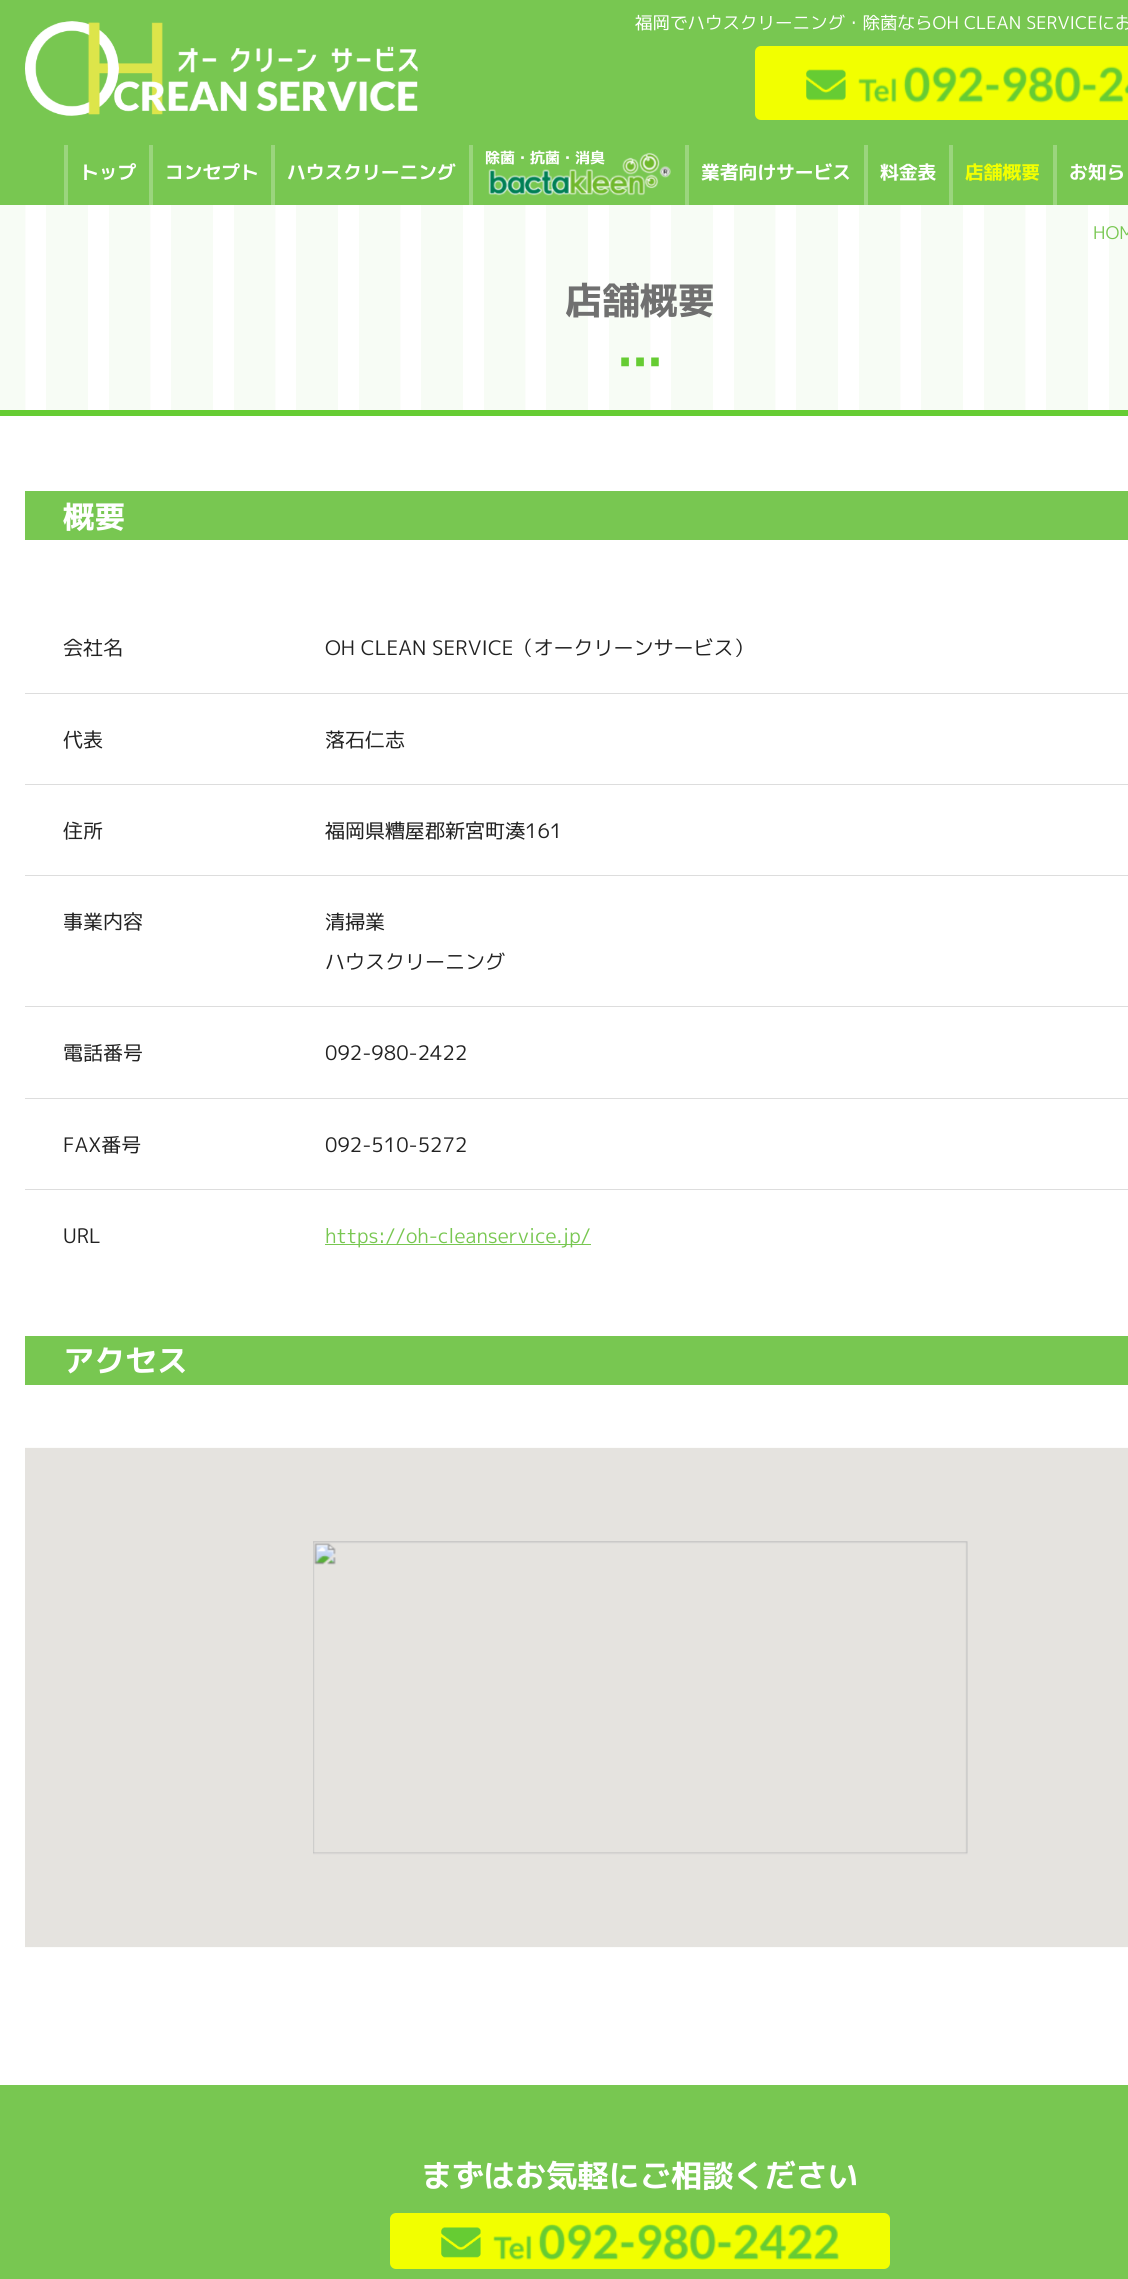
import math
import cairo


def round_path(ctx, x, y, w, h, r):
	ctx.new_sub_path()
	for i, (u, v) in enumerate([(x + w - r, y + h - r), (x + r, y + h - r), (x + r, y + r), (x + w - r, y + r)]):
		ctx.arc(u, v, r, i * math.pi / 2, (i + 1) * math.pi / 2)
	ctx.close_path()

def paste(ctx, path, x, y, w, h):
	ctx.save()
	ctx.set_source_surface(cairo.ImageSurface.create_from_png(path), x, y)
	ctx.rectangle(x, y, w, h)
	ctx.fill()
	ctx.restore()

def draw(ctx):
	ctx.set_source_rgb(1, 1, 1)
	ctx.paint()
	ctx.set_source_rgb(0.471, 0.78, 0.318)
	ctx.rectangle(0, 0, 1128, 205)
	ctx.fill()
	ctx.select_font_face('M PLUS 1p')
	ctx.set_font_size(17.5)
	ctx.set_source_rgb(1, 1, 1)
	ctx.move_to(635, 29)
	ctx.show_text('福岡でハウスクリーニング・除菌ならOH CLEAN SERVICEにお')
	paste(ctx, 'media/1.png', 25, 21, 393, 95)
	ctx.set_source_rgb(0.949, 1, 0)
	round_path(ctx, 755, 46, 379, 74, 6)
	ctx.fill()
	paste(ctx, 'media/2.png', 806, 69, 40, 32)
	paste(ctx, 'media/3.png', 858, 66, 270, 37)
	ctx.set_source_rgb(0.608, 0.835, 0.494)
	ctx.rectangle(685, 145, 4, 60)
	ctx.fill()
	ctx.select_font_face('M PLUS 1p', cairo.FONT_SLANT_NORMAL, cairo.FONT_WEIGHT_BOLD)
	ctx.set_font_size(15)
	ctx.set_source_rgb(1, 1, 1)
	ctx.move_to(485, 163)
	ctx.show_text('除菌・抗菌・消臭')
	paste(ctx, 'media/4.png', 488, 152, 183, 44)
	ctx.set_source_rgb(0.608, 0.835, 0.494)
	ctx.rectangle(149, 145, 4, 60)
	ctx.fill()
	ctx.rectangle(64, 145, 4, 60)
	ctx.fill()
	ctx.set_font_size(18.75)
	ctx.set_source_rgb(1, 1, 1)
	ctx.move_to(80, 179)
	ctx.show_text('トップ')
	ctx.set_source_rgb(0.608, 0.835, 0.494)
	ctx.rectangle(271, 145, 4, 60)
	ctx.fill()
	ctx.set_source_rgb(1, 1, 1)
	ctx.move_to(165, 179)
	ctx.show_text('コンセプト')
	ctx.set_source_rgb(0.608, 0.835, 0.494)
	ctx.rectangle(469, 145, 4, 60)
	ctx.fill()
	ctx.set_source_rgb(1, 1, 1)
	ctx.move_to(287, 179)
	ctx.show_text('ハウスクリーニング')
	ctx.set_source_rgb(0.608, 0.835, 0.494)
	ctx.rectangle(864, 145, 4, 60)
	ctx.fill()
	ctx.set_source_rgb(1, 1, 1)
	ctx.move_to(701, 179)
	ctx.show_text('業者向けサービス')
	ctx.set_source_rgb(0.608, 0.835, 0.494)
	ctx.rectangle(949, 145, 4, 60)
	ctx.fill()
	ctx.set_source_rgb(1, 1, 1)
	ctx.move_to(880, 179)
	ctx.show_text('料金表')
	ctx.set_source_rgb(0.608, 0.835, 0.494)
	ctx.rectangle(1053, 145, 4, 60)
	ctx.fill()
	ctx.set_source_rgb(0.949, 1, 0)
	ctx.move_to(965, 179)
	ctx.show_text('店舗概要')
	ctx.set_source_rgb(1, 1, 1)
	ctx.move_to(1069, 179)
	ctx.show_text('お知ら')
	paste(ctx, 'media/5.png', 0, 205, 1128, 205)
	ctx.set_source_rgb(0.4, 0.8, 0.2)
	ctx.rectangle(0, 410, 1128, 6)
	ctx.fill()
	ctx.select_font_face('M PLUS 1p')
	ctx.set_font_size(17.5)
	ctx.set_source_rgb(0.471, 0.78, 0.318)
	ctx.move_to(1093, 239)
	ctx.show_text('HOM')
	ctx.select_font_face('M PLUS 1p', cairo.FONT_SLANT_NORMAL, cairo.FONT_WEIGHT_BOLD)
	ctx.set_font_size(37.5)
	ctx.set_source_rgb(0.439, 0.439, 0.439)
	ctx.move_to(565, 314)
	ctx.show_text('店舗概要')
	paste(ctx, 'media/6.png', 621, 357, 38, 10)
	ctx.set_source_rgb(0.471, 0.78, 0.318)
	ctx.rectangle(25, 491, 1103, 49)
	ctx.fill()
	ctx.set_font_size(31.25)
	ctx.set_source_rgb(1, 1, 1)
	ctx.move_to(63, 528)
	ctx.show_text('概要')
	ctx.select_font_face('M PLUS 1p')
	ctx.set_font_size(20)
	ctx.set_source_rgb(0.133, 0.133, 0.133)
	for x, y, s in [
		(63, 655, '会社名'),
		(325, 655, 'OH CLEAN SERVICE（オークリーンサービス）'),
		(63, 747, '代表'),
	]:
		ctx.move_to(x, y)
		ctx.show_text(s)
	ctx.set_source_rgb(0.867, 0.867, 0.867)
	ctx.rectangle(25, 693, 1103, 1)
	ctx.fill()
	ctx.set_source_rgb(0.133, 0.133, 0.133)
	ctx.move_to(325, 747)
	ctx.show_text('落石仁志')
	ctx.move_to(63, 838)
	ctx.show_text('住所')
	ctx.set_source_rgb(0.867, 0.867, 0.867)
	ctx.rectangle(25, 784, 1103, 1)
	ctx.fill()
	ctx.set_source_rgb(0.133, 0.133, 0.133)
	ctx.move_to(325, 838)
	ctx.show_text('福岡県糟屋郡新宮町湊161')
	ctx.move_to(63, 929)
	ctx.show_text('事業内容')
	ctx.set_source_rgb(0.867, 0.867, 0.867)
	ctx.rectangle(25, 875, 1103, 1)
	ctx.fill()
	ctx.set_source_rgb(0.133, 0.133, 0.133)
	for x, y, s in [
		(325, 929, '清掃業'),
		(325, 969, 'ハウスクリーニング'),
		(63, 1060, '電話番号'),
	]:
		ctx.move_to(x, y)
		ctx.show_text(s)
	ctx.set_source_rgb(0.867, 0.867, 0.867)
	ctx.rectangle(25, 1006, 1103, 1)
	ctx.fill()
	ctx.set_source_rgb(0.133, 0.133, 0.133)
	ctx.move_to(325, 1060)
	ctx.show_text('092-980-2422')
	ctx.move_to(63, 1152)
	ctx.show_text('FAX番号')
	ctx.set_source_rgb(0.867, 0.867, 0.867)
	ctx.rectangle(25, 1098, 1103, 1)
	ctx.fill()
	ctx.set_source_rgb(0.133, 0.133, 0.133)
	ctx.move_to(325, 1152)
	ctx.show_text('092-510-5272')
	ctx.move_to(63, 1243)
	ctx.show_text('URL')
	ctx.set_source_rgb(0.867, 0.867, 0.867)
	ctx.rectangle(25, 1189, 1103, 1)
	ctx.fill()
	ctx.set_source_rgb(0.471, 0.78, 0.318)
	ctx.rectangle(325, 1244, 266, 1)
	ctx.fill()
	ctx.move_to(325, 1243)
	ctx.show_text('https://oh-cleanservice.jp/')
	ctx.rectangle(25, 1336, 1103, 49)
	ctx.fill()
	ctx.select_font_face('M PLUS 1p', cairo.FONT_SLANT_NORMAL, cairo.FONT_WEIGHT_BOLD)
	ctx.set_font_size(31.25)
	ctx.set_source_rgb(1, 1, 1)
	ctx.move_to(63, 1372)
	ctx.show_text('アクセス')
	paste(ctx, 'media/7.png', 25, 1447, 1103, 501)
	ctx.set_source_rgb(0.471, 0.78, 0.318)
	ctx.rectangle(0, 2085, 1128, 194)
	ctx.fill()
	ctx.set_source_rgb(1, 1, 1)
	ctx.move_to(421, 2187)
	ctx.show_text('まずはお気軽にご相談ください')
	ctx.set_source_rgb(0.949, 1, 0)
	round_path(ctx, 390, 2213, 500, 56, 6)
	ctx.fill()
	paste(ctx, 'media/8.png', 441, 2227, 40, 31)
	paste(ctx, 'media/9.png', 493, 2224, 346, 36)


surface = cairo.ImageSurface(cairo.FORMAT_RGB24, 1128, 2279)
ctx = cairo.Context(surface)
options = cairo.FontOptions()
options.set_hint_metrics(cairo.HINT_METRICS_OFF)
options.set_hint_style(cairo.HINT_STYLE_NONE)
ctx.set_font_options(options)
ctx.set_miter_limit(4)
draw(ctx)
surface.write_to_png('image.png')
